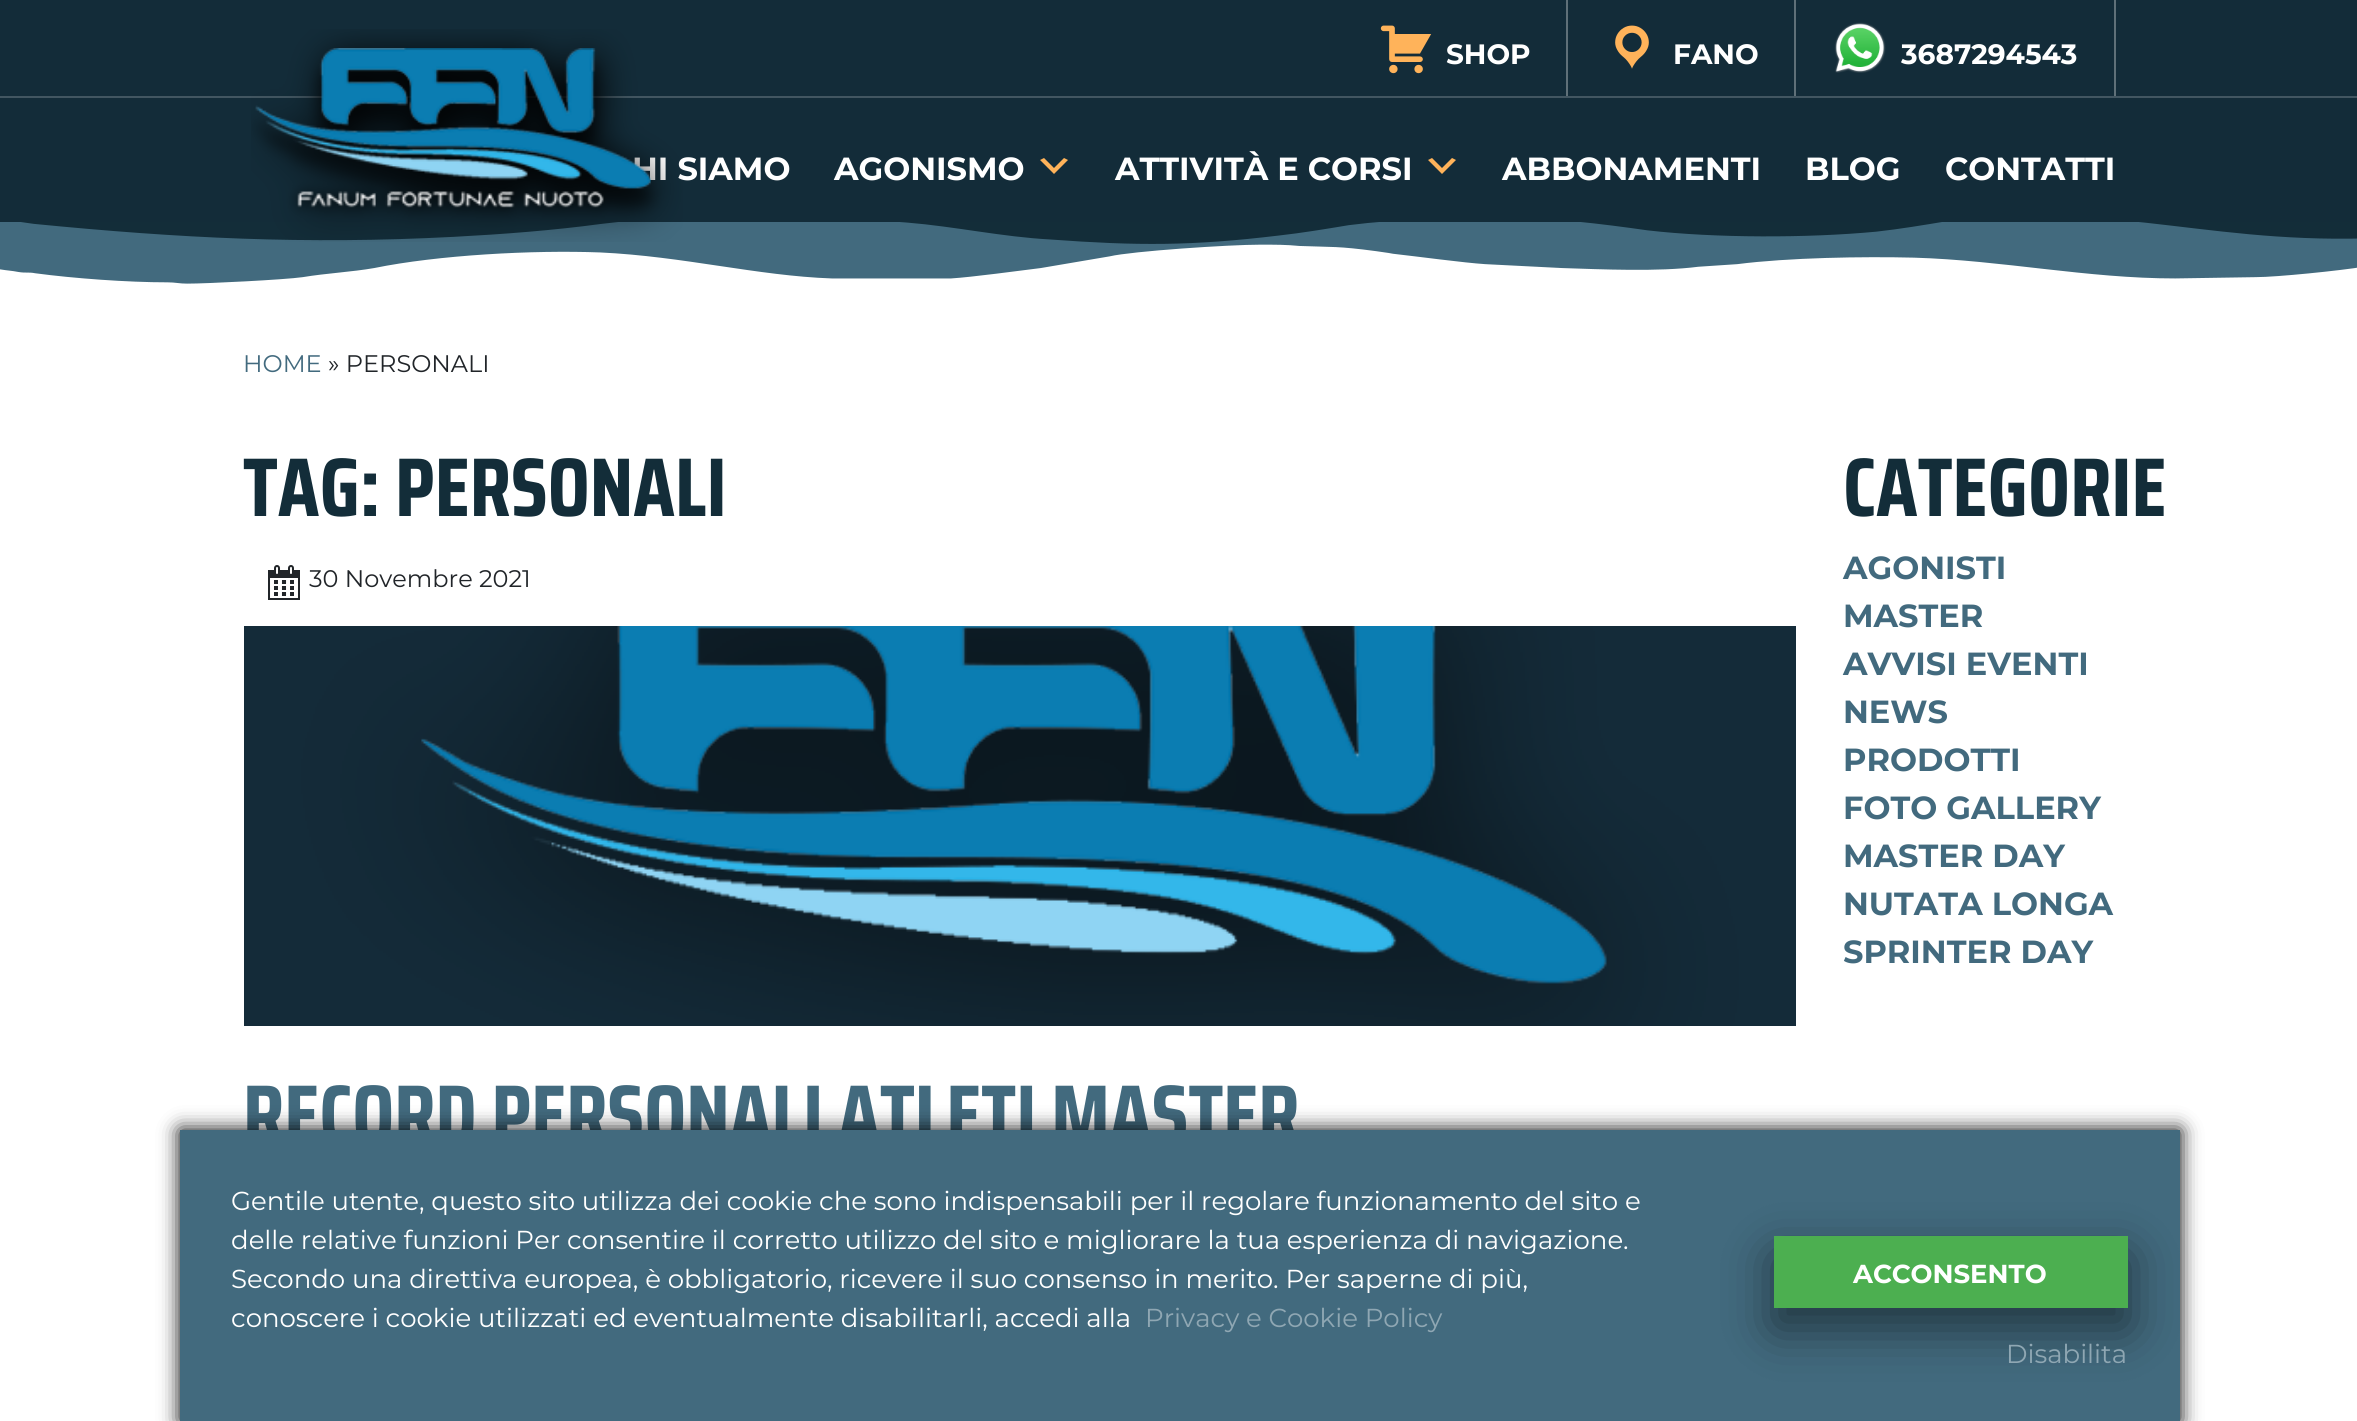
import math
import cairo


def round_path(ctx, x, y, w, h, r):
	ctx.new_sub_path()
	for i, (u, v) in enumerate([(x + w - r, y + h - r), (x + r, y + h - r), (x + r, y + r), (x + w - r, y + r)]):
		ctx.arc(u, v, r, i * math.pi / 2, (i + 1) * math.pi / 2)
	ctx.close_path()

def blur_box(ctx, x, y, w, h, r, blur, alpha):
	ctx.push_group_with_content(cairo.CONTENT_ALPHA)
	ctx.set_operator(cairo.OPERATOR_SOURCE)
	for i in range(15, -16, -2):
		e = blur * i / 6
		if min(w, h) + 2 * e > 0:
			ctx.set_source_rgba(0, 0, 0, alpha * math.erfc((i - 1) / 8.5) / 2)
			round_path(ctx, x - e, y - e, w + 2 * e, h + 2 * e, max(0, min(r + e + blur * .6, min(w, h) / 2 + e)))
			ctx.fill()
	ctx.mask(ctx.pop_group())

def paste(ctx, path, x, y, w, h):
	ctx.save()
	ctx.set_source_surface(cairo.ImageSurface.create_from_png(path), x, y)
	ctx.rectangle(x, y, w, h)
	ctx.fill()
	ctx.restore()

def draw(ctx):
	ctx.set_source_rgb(1, 1, 1)
	ctx.paint()
	ctx.set_source_rgb(0.075, 0.173, 0.224)
	ctx.rectangle(0, 0, 2357, 96)
	ctx.fill()
	ctx.set_source_rgb(0.259, 0.337, 0.38)
	ctx.rectangle(0, 96, 2357, 2)
	ctx.fill()
	ctx.set_source_rgb(0.373, 0.439, 0.471)
	ctx.rectangle(1566, 0, 2, 96)
	ctx.fill()
	paste(ctx, 'media/1.png', 1380, 25, 52, 49)
	ctx.select_font_face('Montserrat', cairo.FONT_SLANT_NORMAL, cairo.FONT_WEIGHT_BOLD)
	ctx.set_font_size(28)
	ctx.set_source_rgb(1, 1, 1)
	ctx.move_to(1446, 64)
	ctx.show_text('SHOP')
	ctx.set_source_rgb(0.373, 0.439, 0.471)
	ctx.rectangle(1794, 0, 2, 96)
	ctx.fill()
	paste(ctx, 'media/2.png', 1615, 25, 34, 44)
	ctx.set_source_rgb(1, 1, 1)
	ctx.move_to(1673, 64)
	ctx.show_text('FANO')
	ctx.set_source_rgb(0.373, 0.439, 0.471)
	ctx.rectangle(2114, 0, 2, 96)
	ctx.fill()
	paste(ctx, 'media/3.png', 1834, 22, 52, 51)
	ctx.set_source_rgb(1, 1, 1)
	ctx.move_to(1901, 64)
	ctx.show_text('3687294543')
	ctx.set_source_rgb(0.075, 0.173, 0.224)
	ctx.rectangle(0, 98, 2357, 124)
	ctx.fill()
	ctx.set_font_size(32)
	ctx.set_source_rgb(1, 1, 1)
	ctx.move_to(632, 180)
	ctx.show_text('HI SIAMO')
	paste(ctx, 'media/5.png', 0, 222, 2357, 62)
	paste(ctx, 'media/4.png', 251, 29, 432, 213)
	ctx.move_to(834, 180)
	ctx.show_text('AGONISMO')
	ctx.set_source_rgb(1, 0.702, 0.353)
	ctx.new_path()
	ctx.move_to(1044, 158)
	ctx.line_to(1054, 168)
	ctx.line_to(1064, 158)
	ctx.line_to(1068, 160)
	ctx.line_to(1054, 174)
	ctx.line_to(1040, 160)
	ctx.close_path()
	ctx.fill()
	ctx.set_source_rgb(1, 1, 1)
	ctx.move_to(1115, 180)
	ctx.show_text('ATTIVITÀ E CORSI')
	ctx.set_source_rgb(1, 0.702, 0.353)
	ctx.new_path()
	ctx.move_to(1432, 158)
	ctx.line_to(1442, 168)
	ctx.line_to(1452, 158)
	ctx.line_to(1456, 160)
	ctx.line_to(1442, 174)
	ctx.line_to(1428, 160)
	ctx.close_path()
	ctx.fill()
	ctx.set_source_rgb(1, 1, 1)
	for x, y, s in [
		(1502, 180, 'ABBONAMENTI'),
		(1805, 180, 'BLOG'),
		(1945, 180, 'CONTATTI'),
	]:
		ctx.move_to(x, y)
		ctx.show_text(s)
	ctx.select_font_face('Montserrat')
	ctx.set_font_size(24)
	ctx.set_source_rgb(0.259, 0.416, 0.494)
	ctx.move_to(243, 372)
	ctx.show_text('HOME')
	ctx.set_source_rgb(0.129, 0.145, 0.161)
	ctx.move_to(328, 372)
	ctx.show_text('» PERSONALI')
	ctx.select_font_face('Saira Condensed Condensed', cairo.FONT_SLANT_NORMAL, cairo.FONT_WEIGHT_BOLD)
	ctx.set_font_size(83.25)
	ctx.set_source_rgb(0.075, 0.176, 0.224)
	ctx.move_to(243, 516)
	ctx.show_text('TAG: PERSONALI')
	paste(ctx, 'media/6.png', 268, 565, 32, 35)
	ctx.select_font_face('Montserrat')
	ctx.set_font_size(24)
	ctx.set_source_rgb(0.129, 0.145, 0.161)
	ctx.move_to(309, 587)
	ctx.show_text('30 Novembre 2021')
	paste(ctx, 'media/7.png', 244, 626, 1552, 400)
	ctx.select_font_face('Saira Condensed Condensed', cairo.FONT_SLANT_NORMAL, cairo.FONT_WEIGHT_BOLD)
	ctx.set_font_size(83.25)
	ctx.set_source_rgb(0.259, 0.416, 0.494)
	ctx.move_to(243, 1143)
	ctx.show_text('RECORD PERSONALI ATLETI MASTER')
	ctx.set_source_rgb(0.075, 0.176, 0.224)
	ctx.move_to(1843, 516)
	ctx.show_text('CATEGORIE')
	ctx.select_font_face('Montserrat', cairo.FONT_SLANT_NORMAL, cairo.FONT_WEIGHT_BOLD)
	ctx.set_font_size(32)
	ctx.set_source_rgb(0.259, 0.416, 0.494)
	for x, y, s in [
		(1843, 579, 'AGONISTI'),
		(1843, 627, 'MASTER'),
		(1843, 675, 'AVVISI EVENTI'),
		(1843, 723, 'NEWS'),
		(1843, 771, 'PRODOTTI'),
		(1843, 819, 'FOTO GALLERY'),
		(1843, 867, 'MASTER DAY'),
		(1843, 915, 'NUTATA LONGA'),
		(1843, 963, 'SPRINTER DAY'),
	]:
		ctx.move_to(x, y)
		ctx.show_text(s)
	ctx.set_source_rgb(0, 0, 0)
	blur_box(ctx, 180, 1130, 2000, 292, 0, 10, 1)
	ctx.set_source_rgb(0.259, 0.416, 0.494)
	ctx.rectangle(180, 1130, 2000, 291)
	ctx.fill()
	ctx.select_font_face('Montserrat')
	ctx.set_font_size(26)
	ctx.set_source_rgb(1, 1, 1)
	for x, y, s in [
		(231, 1210, 'Gentile utente, questo sito utilizza dei cookie che sono indispensabili per il regolare funzionamento del sito e'),
		(231, 1249, 'delle relative funzioni Per consentire il corretto utilizzo del sito e migliorare la tua esperienza di navigazione.'),
		(231, 1288, 'Secondo una direttiva europea, è obbligatorio, ricevere il suo consenso in merito. Per saperne di più,'),
		(231, 1327, 'conoscere i cookie utilizzati ed eventualmente disabilitarli, accedi alla'),
	]:
		ctx.move_to(x, y)
		ctx.show_text(s)
	ctx.set_source_rgb(0.561, 0.655, 0.702)
	ctx.move_to(1145, 1327)
	ctx.show_text('Privacy e Cookie Policy')
	ctx.set_source_rgb(0, 0, 0)
	blur_box(ctx, 1774, 1256, 354, 72, 0, 25, 0.5)
	ctx.set_source_rgb(0.298, 0.686, 0.314)
	ctx.rectangle(1774, 1236, 354, 72)
	ctx.fill()
	ctx.select_font_face('Montserrat', cairo.FONT_SLANT_NORMAL, cairo.FONT_WEIGHT_BOLD)
	ctx.set_source_rgb(1, 1, 1)
	ctx.move_to(1853, 1283)
	ctx.show_text('ACCONSENTO')
	ctx.select_font_face('Montserrat')
	ctx.set_source_rgb(0.561, 0.655, 0.702)
	ctx.move_to(2006, 1363)
	ctx.show_text('Disabilita')


surface = cairo.ImageSurface(cairo.FORMAT_RGB24, 2357, 1421)
ctx = cairo.Context(surface)
options = cairo.FontOptions()
options.set_hint_metrics(cairo.HINT_METRICS_OFF)
options.set_hint_style(cairo.HINT_STYLE_NONE)
ctx.set_font_options(options)
ctx.set_miter_limit(4)
draw(ctx)
surface.write_to_png('image.png')
